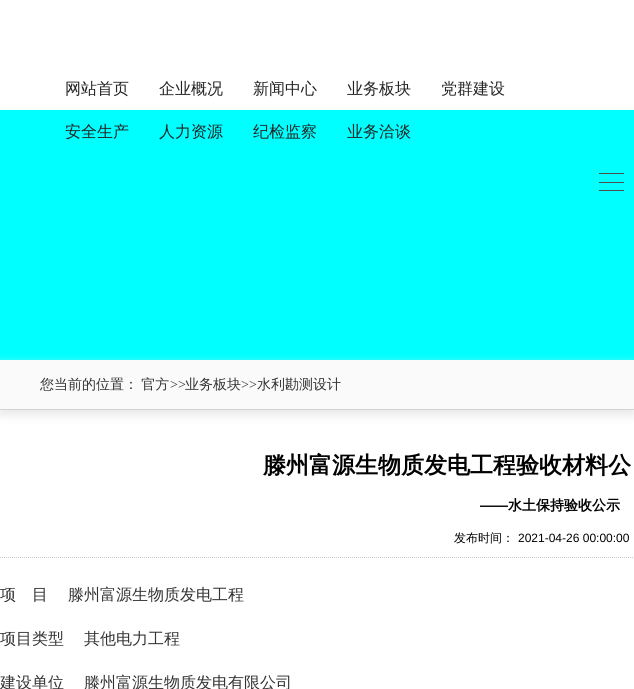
import math
import cairo


def write_spaced(ctx, x, y, s, letter, word):
	ctx.move_to(x, y)
	for ch in s:
		ctx.show_text(ch)
		ctx.rel_move_to(letter + word * (ch == ' '), 0)

def round_path(ctx, x, y, w, h, r):
	ctx.new_sub_path()
	for i, (u, v) in enumerate([(x + w - r, y + h - r), (x + r, y + h - r), (x + r, y + r), (x + w - r, y + r)]):
		ctx.arc(u, v, r, i * math.pi / 2, (i + 1) * math.pi / 2)
	ctx.close_path()

def blur_box(ctx, x, y, w, h, r, blur, alpha):
	ctx.push_group_with_content(cairo.CONTENT_ALPHA)
	ctx.set_operator(cairo.OPERATOR_SOURCE)
	for i in range(15, -16, -2):
		e = blur * i / 6
		if min(w, h) + 2 * e > 0:
			ctx.set_source_rgba(0, 0, 0, alpha * math.erfc((i - 1) / 8.5) / 2)
			round_path(ctx, x - e, y - e, w + 2 * e, h + 2 * e, max(0, min(r + e + blur * .6, min(w, h) / 2 + e)))
			ctx.fill()
	ctx.mask(ctx.pop_group())

def draw(ctx):
	ctx.set_source_rgb(1, 1, 1)
	ctx.paint()
	ctx.select_font_face('WenQuanYi Zen Hei Medium')
	ctx.set_font_size(16)
	ctx.set_source_rgb(0.137, 0.137, 0.137)
	for x, y, s in [
		(65, 94, '网站首页'),
		(159, 94, '企业概况'),
		(253, 94, '新闻中心'),
		(347, 94, '业务板块'),
		(441, 94, '党群建设'),
	]:
		ctx.move_to(x, y)
		ctx.show_text(s)
	ctx.set_source_rgb(0, 1, 1)
	ctx.rectangle(0, 110, 634, 250)
	ctx.fill()
	ctx.set_source_rgb(0.137, 0.137, 0.137)
	for x, y, s in [
		(65, 137, '安全生产'),
		(159, 137, '人力资源'),
		(253, 137, '纪检监察'),
		(347, 137, '业务洽谈'),
	]:
		ctx.move_to(x, y)
		ctx.show_text(s)
	ctx.set_source_rgb(0.31, 0.31, 0.31)
	ctx.rectangle(599, 182, 25, 1)
	ctx.rectangle(599, 173, 25, 1)
	ctx.rectangle(599, 190, 25, 1)
	ctx.fill()
	ctx.set_source_rgb(0.91, 0.91, 0.91)
	blur_box(ctx, 0, 365, 634, 50, 0, 5, 1)
	ctx.set_source_rgb(0.984, 0.98, 0.98)
	ctx.rectangle(0, 360, 634, 49)
	ctx.fill()
	ctx.set_source_rgb(0.827, 0.827, 0.827)
	ctx.rectangle(0, 409, 634, 1)
	ctx.fill()
	ctx.set_font_size(14)
	ctx.set_source_rgb(0.2, 0.2, 0.2)
	write_spaced(ctx, 40, 389, '您当前的位置： 官方', 0, -1)
	ctx.select_font_face('Liberation Serif')
	ctx.move_to(170, 389)
	ctx.show_text('>>')
	ctx.select_font_face('WenQuanYi Zen Hei Medium')
	ctx.move_to(185, 389)
	ctx.show_text('业务板块')
	ctx.select_font_face('Liberation Serif')
	ctx.move_to(241, 389)
	ctx.show_text('>>')
	ctx.select_font_face('WenQuanYi Zen Hei Medium')
	ctx.move_to(257, 389)
	ctx.show_text('水利勘测设计')
	ctx.new_path()
	ctx.move_to(0, 557.5)
	ctx.line_to(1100, 557.5)
	ctx.set_source_rgb(0.8, 0.8, 0.8)
	ctx.set_line_width(1)
	ctx.set_dash([1, 1])
	ctx.stroke()
	ctx.select_font_face('WenQuanYi Zen Hei', cairo.FONT_SLANT_NORMAL, cairo.FONT_WEIGHT_BOLD)
	ctx.set_font_size(23)
	ctx.set_source_rgb(0, 0, 0)
	ctx.move_to(263, 473)
	ctx.show_text('滕州富源生物质发电工程验收材料公')
	ctx.select_font_face('Liberation Sans', cairo.FONT_SLANT_NORMAL, cairo.FONT_WEIGHT_BOLD)
	ctx.set_font_size(14)
	ctx.move_to(480, 510)
	ctx.show_text('——')
	ctx.select_font_face('WenQuanYi Zen Hei', cairo.FONT_SLANT_NORMAL, cairo.FONT_WEIGHT_BOLD)
	ctx.move_to(508, 510)
	ctx.show_text('水土保持验收公示')
	ctx.select_font_face('WenQuanYi Zen Hei Medium')
	ctx.set_font_size(12)
	ctx.move_to(454, 542)
	ctx.show_text('发布时间：')
	ctx.select_font_face('Liberation Sans')
	ctx.move_to(518, 542)
	ctx.show_text('2021-04-26 00:00:00')
	ctx.select_font_face('WenQuanYi Zen Hei Medium')
	ctx.set_font_size(16)
	ctx.set_source_rgb(0.2, 0.2, 0.2)
	for x, y, s in [
		(0, 600, '项'),
		(32, 600, '目'),
		(68, 600, '滕州富源生物质发电工程'),
		(0, 644, '项目类型'),
		(84, 644, '其他电力工程'),
		(0, 688, '建设单位'),
		(84, 688, '滕州富源生物质发电有限公司'),
	]:
		ctx.move_to(x, y)
		ctx.show_text(s)


surface = cairo.ImageSurface(cairo.FORMAT_RGB24, 634, 689)
ctx = cairo.Context(surface)
options = cairo.FontOptions()
options.set_hint_metrics(cairo.HINT_METRICS_OFF)
options.set_hint_style(cairo.HINT_STYLE_NONE)
ctx.set_font_options(options)
ctx.set_miter_limit(4)
draw(ctx)
surface.write_to_png('image.png')
